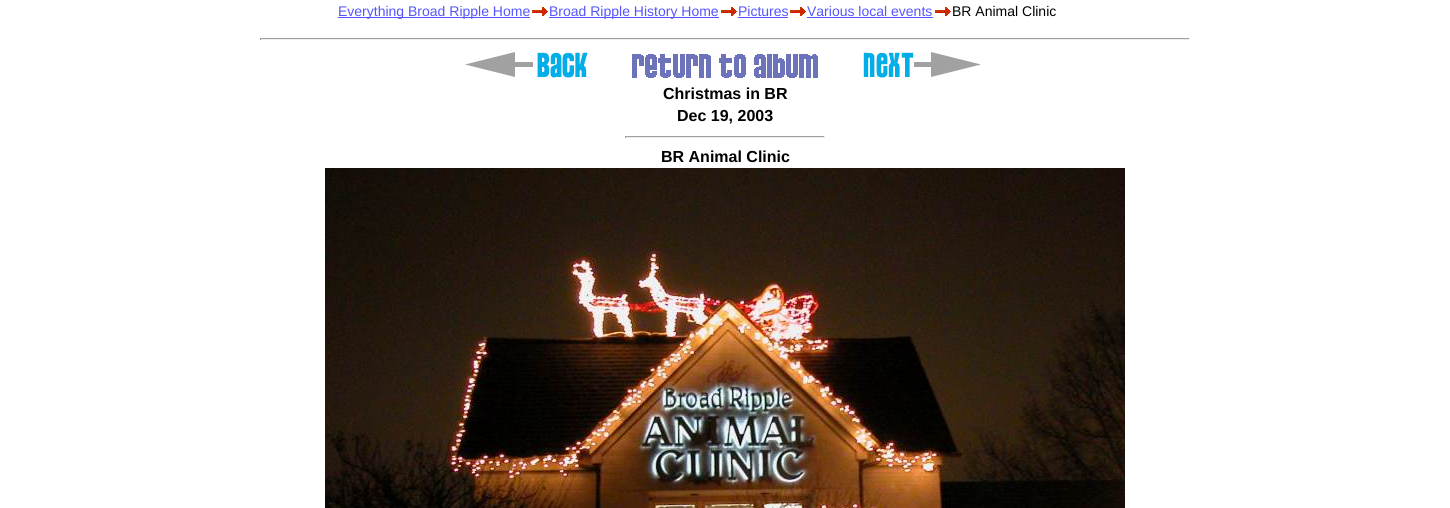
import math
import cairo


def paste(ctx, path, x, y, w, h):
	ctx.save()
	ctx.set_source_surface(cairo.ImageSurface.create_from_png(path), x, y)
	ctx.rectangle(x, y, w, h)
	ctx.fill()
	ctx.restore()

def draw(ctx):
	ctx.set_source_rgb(1, 1, 1)
	ctx.paint()
	ctx.set_source_rgb(0.333, 0.333, 1)
	ctx.rectangle(338, 17, 192, 1)
	ctx.fill()
	ctx.select_font_face('Liberation Sans')
	ctx.set_font_size(14)
	ctx.move_to(338, 16)
	ctx.show_text('Everything Broad Ripple Home')
	paste(ctx, 'media/1.png', 532, 7, 16, 9)
	ctx.rectangle(549, 17, 170, 1)
	ctx.fill()
	ctx.move_to(549, 16)
	ctx.show_text('Broad Ripple History Home')
	paste(ctx, 'media/1.png', 721, 7, 16, 9)
	ctx.move_to(738, 16)
	ctx.show_text('Pictures')
	ctx.rectangle(738, 17, 50, 1)
	ctx.fill()
	paste(ctx, 'media/1.png', 790, 7, 16, 9)
	ctx.move_to(807, 16)
	ctx.show_text('Various local events')
	ctx.rectangle(807, 17, 126, 1)
	ctx.fill()
	paste(ctx, 'media/1.png', 935, 7, 16, 9)
	ctx.set_source_rgb(0, 0, 0)
	ctx.move_to(952, 16)
	ctx.show_text('BR Animal Clinic')
	ctx.set_source_rgb(0.624, 0.624, 0.624)
	ctx.rectangle(260, 38, 930, 1)
	ctx.fill()
	ctx.set_source_rgb(0.933, 0.933, 0.933)
	ctx.rectangle(1189, 38, 1, 2)
	ctx.rectangle(260, 39, 930, 1)
	ctx.fill()
	ctx.set_source_rgb(0.624, 0.624, 0.624)
	ctx.rectangle(260, 38, 1, 2)
	ctx.fill()
	paste(ctx, 'media/2.png', 465, 52, 123, 26)
	paste(ctx, 'media/3.png', 632, 54, 186, 24)
	paste(ctx, 'media/4.png', 863, 52, 118, 26)
	ctx.select_font_face('Liberation Sans', cairo.FONT_SLANT_NORMAL, cairo.FONT_WEIGHT_BOLD)
	ctx.set_font_size(16)
	ctx.set_source_rgb(0, 0, 0)
	ctx.move_to(663, 99)
	ctx.show_text('Christmas in BR')
	ctx.move_to(677, 121)
	ctx.show_text('Dec 19, 2003')
	ctx.set_source_rgb(0.624, 0.624, 0.624)
	ctx.rectangle(625, 136, 200, 1)
	ctx.fill()
	ctx.set_source_rgb(0.933, 0.933, 0.933)
	ctx.rectangle(824, 136, 1, 2)
	ctx.rectangle(625, 137, 200, 1)
	ctx.fill()
	ctx.set_source_rgb(0.624, 0.624, 0.624)
	ctx.rectangle(625, 136, 1, 2)
	ctx.fill()
	ctx.set_source_rgb(0, 0, 0)
	ctx.move_to(661, 162)
	ctx.show_text('BR Animal Clinic')
	paste(ctx, 'media/5.png', 325, 168, 800, 340)


surface = cairo.ImageSurface(cairo.FORMAT_RGB24, 1450, 508)
ctx = cairo.Context(surface)
options = cairo.FontOptions()
options.set_hint_metrics(cairo.HINT_METRICS_OFF)
options.set_hint_style(cairo.HINT_STYLE_NONE)
ctx.set_font_options(options)
ctx.set_miter_limit(4)
draw(ctx)
surface.write_to_png('image.png')
